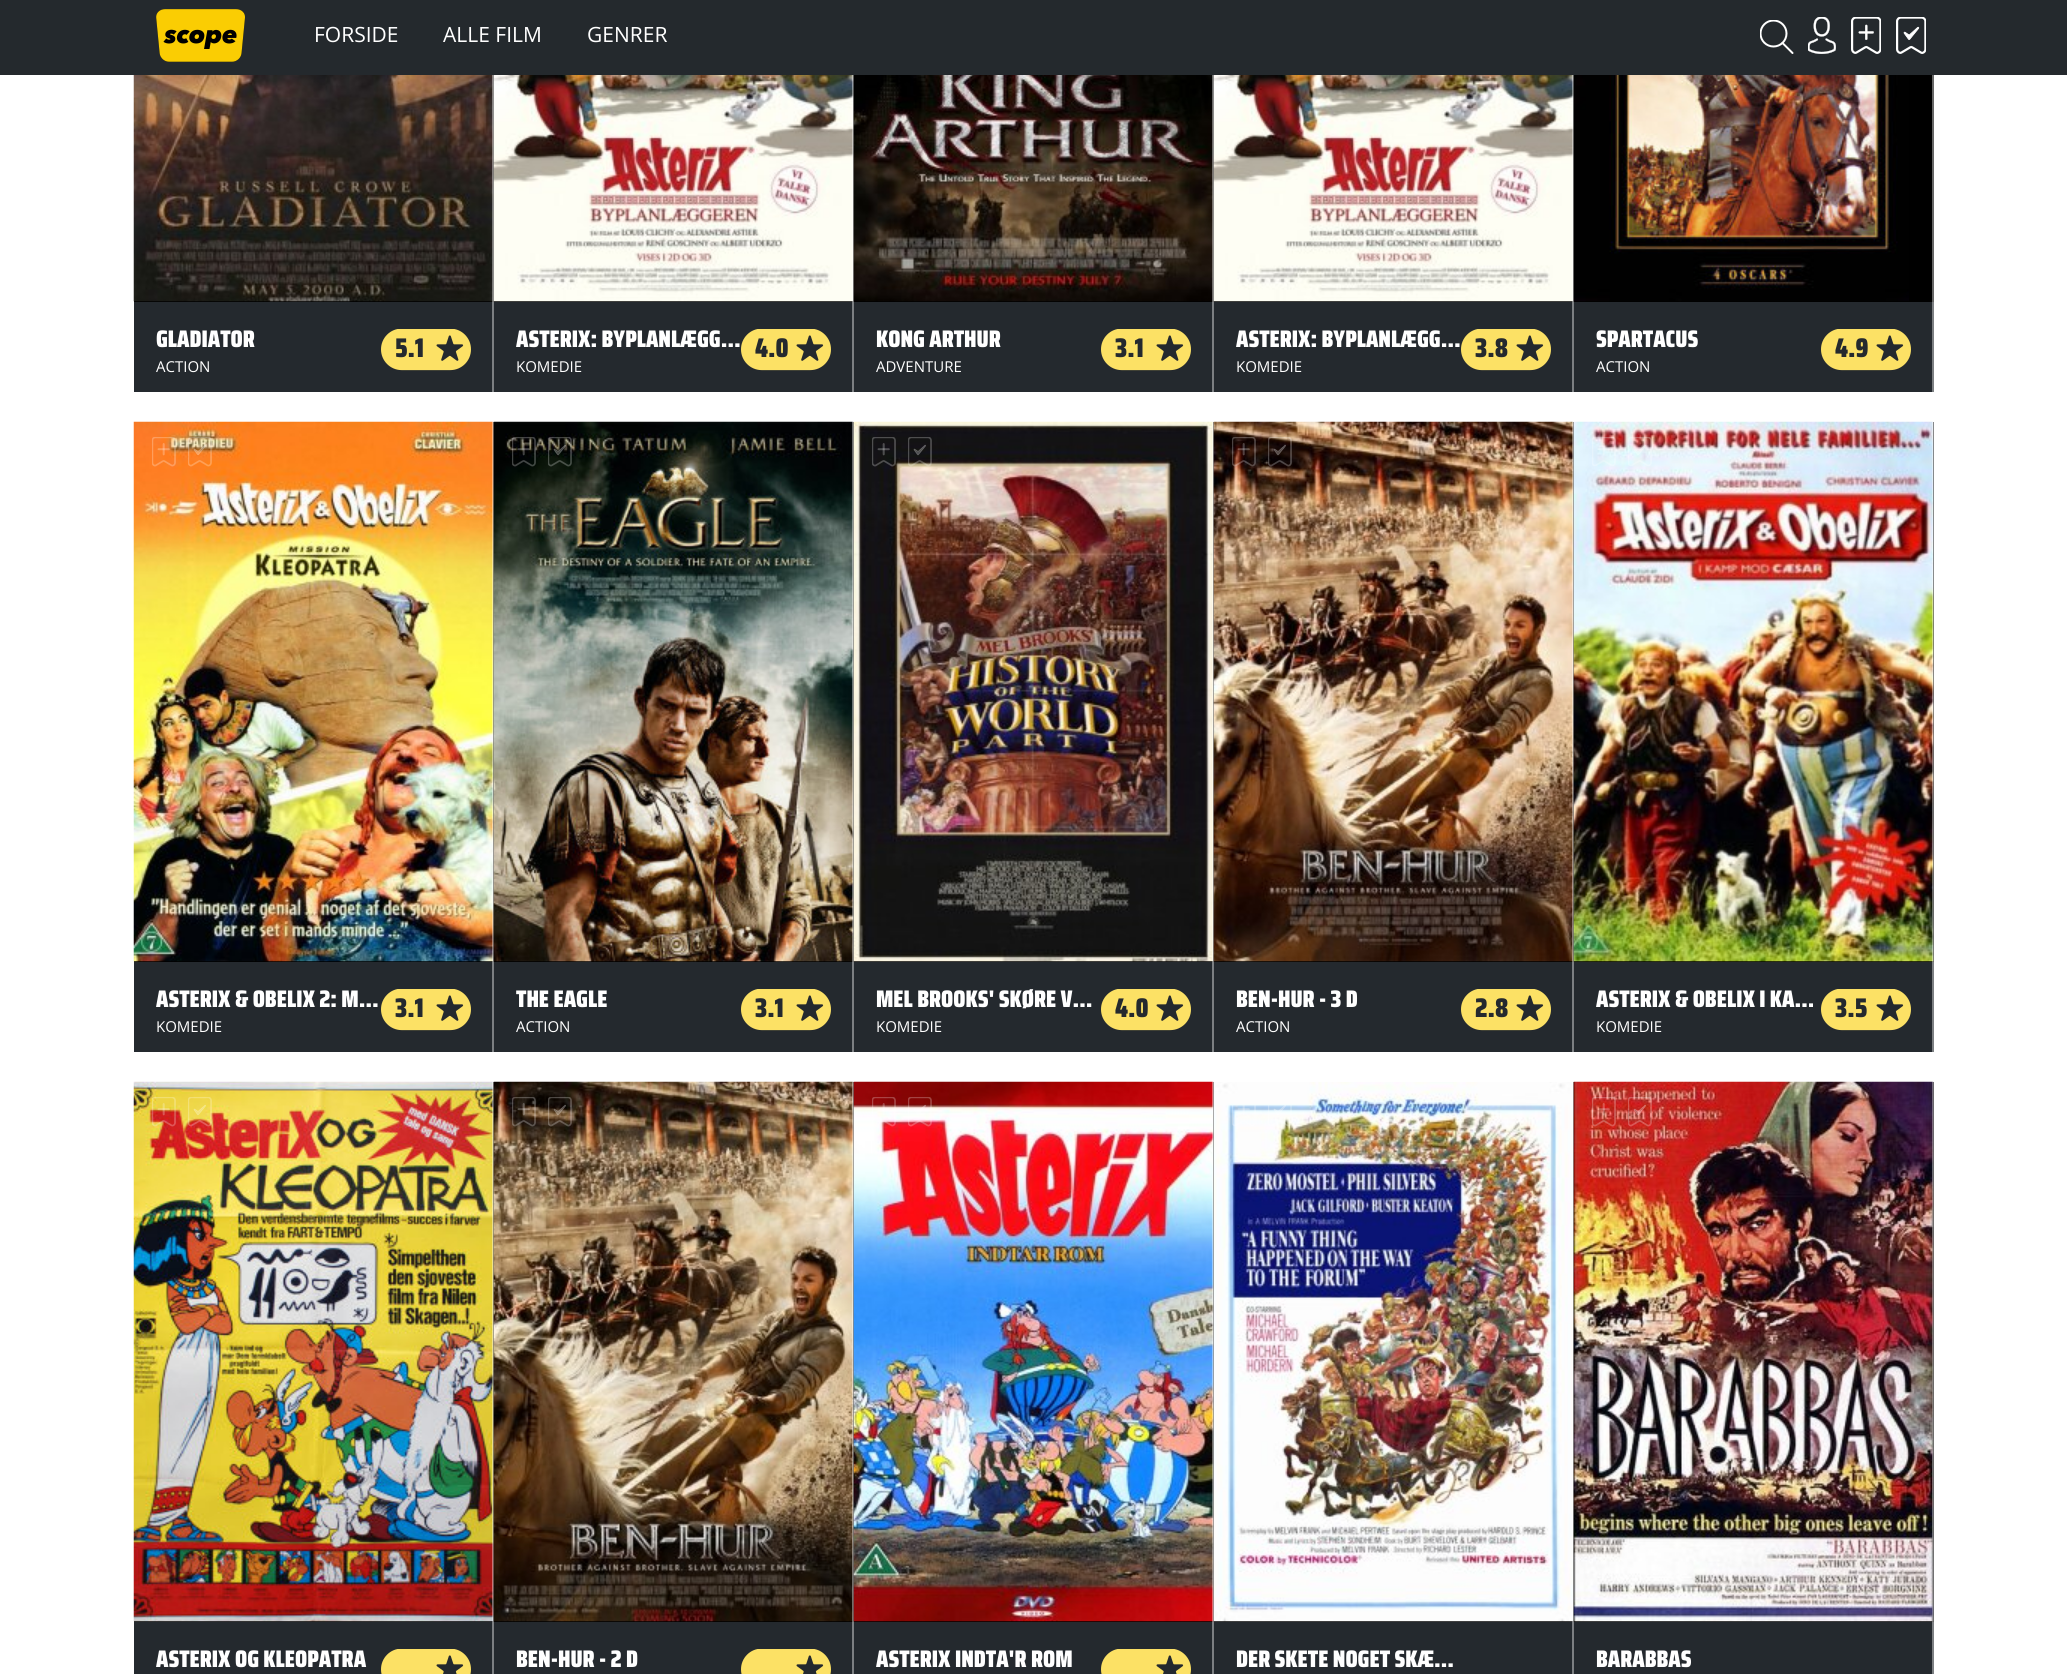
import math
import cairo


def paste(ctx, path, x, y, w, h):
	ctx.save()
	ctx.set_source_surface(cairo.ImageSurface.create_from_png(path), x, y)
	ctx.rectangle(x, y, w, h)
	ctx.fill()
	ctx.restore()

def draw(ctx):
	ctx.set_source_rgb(1, 1, 1)
	ctx.paint()
	ctx.set_source_rgb(0.141, 0.161, 0.176)
	ctx.rectangle(0, 0, 2067, 75)
	ctx.fill()
	paste(ctx, 'media/1.png', 156, 9, 89, 53)
	ctx.select_font_face('Open Sans')
	ctx.set_font_size(21)
	ctx.set_source_rgb(1, 1, 1)
	for x, y, s in [
		(314, 42, 'FORSIDE'),
		(443, 42, 'ALLE FILM'),
		(587, 42, 'GENRER'),
	]:
		ctx.move_to(x, y)
		ctx.show_text(s)
	ctx.save()
	ctx.rectangle(1760, 20, 34, 34)
	ctx.clip()
	ctx.arc(1773.5, 33.5, 13, 0, 2 * math.pi)
	ctx.stroke()
	ctx.restore()
	ctx.new_path()
	ctx.move_to(1782.5, 43)
	ctx.line_to(1792.5, 53)
	ctx.set_line_cap(cairo.LINE_CAP_ROUND)
	ctx.stroke()
	paste(ctx, 'media/2.png', 1808, 17, 28, 37)
	paste(ctx, 'media/3.png', 1851, 17, 30, 37)
	paste(ctx, 'media/4.png', 1896, 17, 30, 37)
	ctx.set_source_rgb(0, 0, 0)
	ctx.rectangle(134, 75, 1798, 227)
	ctx.fill()
	paste(ctx, 'media/5.png', 133, 75, 361, 227)
	ctx.set_source_rgb(0.141, 0.161, 0.18)
	ctx.rectangle(134, 302, 1798, 90)
	ctx.fill()
	ctx.select_font_face('Saira Condensed Black')
	ctx.set_font_size(24)
	ctx.set_source_rgb(1, 1, 1)
	ctx.move_to(156, 347)
	ctx.show_text('GLADIATOR')
	paste(ctx, 'media/6.png', 381, 329, 90, 42)
	ctx.set_font_size(27)
	ctx.set_source_rgb(0.141, 0.161, 0.18)
	ctx.move_to(395, 357)
	ctx.show_text('5.1')
	ctx.select_font_face('Open Sans')
	ctx.set_font_size(15)
	ctx.set_source_rgb(1, 1, 1)
	ctx.move_to(156, 372)
	ctx.show_text('ACTION')
	ctx.set_source_rgba(1, 1, 1, 0.4)
	ctx.rectangle(492, 75, 2, 317)
	ctx.fill()
	paste(ctx, 'media/7.png', 493, 75, 361, 227)
	ctx.select_font_face('Saira Condensed Black')
	ctx.set_font_size(24)
	ctx.set_source_rgb(1, 1, 1)
	ctx.move_to(516, 347)
	ctx.show_text('ASTERIX: BYPLANLÆGG…')
	paste(ctx, 'media/6.png', 741, 329, 90, 42)
	ctx.set_font_size(27)
	ctx.set_source_rgb(0.141, 0.161, 0.18)
	ctx.move_to(755, 357)
	ctx.show_text('4.0')
	ctx.select_font_face('Open Sans')
	ctx.set_font_size(15)
	ctx.set_source_rgb(1, 1, 1)
	ctx.move_to(516, 372)
	ctx.show_text('KOMEDIE')
	ctx.set_source_rgba(1, 1, 1, 0.4)
	ctx.rectangle(852, 75, 2, 317)
	ctx.fill()
	paste(ctx, 'media/8.png', 853, 75, 361, 227)
	ctx.select_font_face('Saira Condensed Black')
	ctx.set_font_size(24)
	ctx.set_source_rgb(1, 1, 1)
	ctx.move_to(876, 347)
	ctx.show_text('KONG ARTHUR')
	paste(ctx, 'media/6.png', 1101, 329, 90, 42)
	ctx.set_font_size(27)
	ctx.set_source_rgb(0.141, 0.161, 0.18)
	ctx.move_to(1115, 357)
	ctx.show_text('3.1')
	ctx.select_font_face('Open Sans')
	ctx.set_font_size(15)
	ctx.set_source_rgb(1, 1, 1)
	ctx.move_to(876, 372)
	ctx.show_text('ADVENTURE')
	ctx.set_source_rgba(1, 1, 1, 0.4)
	ctx.rectangle(1212, 75, 2, 317)
	ctx.fill()
	paste(ctx, 'media/9.png', 1213, 75, 361, 227)
	ctx.select_font_face('Saira Condensed Black')
	ctx.set_font_size(24)
	ctx.set_source_rgb(1, 1, 1)
	ctx.move_to(1236, 347)
	ctx.show_text('ASTERIX: BYPLANLÆGG…')
	paste(ctx, 'media/6.png', 1461, 329, 90, 42)
	ctx.set_font_size(27)
	ctx.set_source_rgb(0.141, 0.161, 0.18)
	ctx.move_to(1475, 357)
	ctx.show_text('3.8')
	ctx.select_font_face('Open Sans')
	ctx.set_font_size(15)
	ctx.set_source_rgb(1, 1, 1)
	ctx.move_to(1236, 372)
	ctx.show_text('KOMEDIE')
	ctx.set_source_rgba(1, 1, 1, 0.4)
	ctx.rectangle(1572, 75, 2, 317)
	ctx.fill()
	ctx.set_source_rgb(0.4, 0.4, 0.4)
	ctx.rectangle(1932, 75, 2, 227)
	ctx.fill()
	paste(ctx, 'media/10.png', 1573, 75, 336, 227)
	ctx.set_source_rgb(0.486, 0.498, 0.51)
	ctx.rectangle(1932, 302, 2, 90)
	ctx.fill()
	ctx.select_font_face('Saira Condensed Black')
	ctx.set_font_size(24)
	ctx.set_source_rgb(1, 1, 1)
	ctx.move_to(1596, 347)
	ctx.show_text('SPARTACUS')
	paste(ctx, 'media/6.png', 1821, 329, 90, 42)
	ctx.set_font_size(27)
	ctx.set_source_rgb(0.141, 0.161, 0.18)
	ctx.move_to(1835, 357)
	ctx.show_text('4.9')
	ctx.select_font_face('Open Sans')
	ctx.set_font_size(15)
	ctx.set_source_rgb(1, 1, 1)
	ctx.move_to(1596, 372)
	ctx.show_text('ACTION')
	ctx.set_source_rgb(0, 0, 0)
	ctx.rectangle(134, 422, 1800, 540)
	ctx.fill()
	paste(ctx, 'media/13.png', 133, 421, 361, 541)
	paste(ctx, 'media/11.png', 152, 437, 24, 30)
	paste(ctx, 'media/12.png', 188, 437, 24, 30)
	ctx.set_source_rgb(0.141, 0.161, 0.18)
	ctx.rectangle(134, 962, 1800, 90)
	ctx.fill()
	ctx.select_font_face('Saira Condensed Black')
	ctx.set_font_size(24)
	ctx.set_source_rgb(1, 1, 1)
	ctx.move_to(156, 1007)
	ctx.show_text('ASTERIX & OBELIX 2: M…')
	paste(ctx, 'media/6.png', 381, 989, 90, 42)
	ctx.set_font_size(27)
	ctx.set_source_rgb(0.141, 0.161, 0.18)
	ctx.move_to(395, 1017)
	ctx.show_text('3.1')
	ctx.select_font_face('Open Sans')
	ctx.set_font_size(15)
	ctx.set_source_rgb(1, 1, 1)
	ctx.move_to(156, 1032)
	ctx.show_text('KOMEDIE')
	ctx.set_source_rgba(1, 1, 1, 0.4)
	ctx.rectangle(492, 421, 2, 631)
	ctx.fill()
	paste(ctx, 'media/16.png', 493, 421, 361, 541)
	paste(ctx, 'media/14.png', 512, 437, 24, 30)
	paste(ctx, 'media/15.png', 548, 437, 24, 30)
	ctx.select_font_face('Saira Condensed Black')
	ctx.set_font_size(24)
	ctx.set_source_rgb(1, 1, 1)
	ctx.move_to(516, 1007)
	ctx.show_text('THE EAGLE')
	paste(ctx, 'media/6.png', 741, 989, 90, 42)
	ctx.set_font_size(27)
	ctx.set_source_rgb(0.141, 0.161, 0.18)
	ctx.move_to(755, 1017)
	ctx.show_text('3.1')
	ctx.select_font_face('Open Sans')
	ctx.set_font_size(15)
	ctx.set_source_rgb(1, 1, 1)
	ctx.move_to(516, 1032)
	ctx.show_text('ACTION')
	ctx.set_source_rgba(1, 1, 1, 0.4)
	ctx.rectangle(852, 421, 2, 631)
	ctx.fill()
	paste(ctx, 'media/19.png', 853, 421, 361, 541)
	paste(ctx, 'media/17.png', 872, 437, 24, 30)
	paste(ctx, 'media/18.png', 908, 437, 24, 30)
	ctx.select_font_face('Saira Condensed Black')
	ctx.set_font_size(24)
	ctx.set_source_rgb(1, 1, 1)
	ctx.move_to(876, 1007)
	ctx.show_text('MEL BROOKS\' SKØRE V…')
	paste(ctx, 'media/6.png', 1101, 989, 90, 42)
	ctx.set_font_size(27)
	ctx.set_source_rgb(0.141, 0.161, 0.18)
	ctx.move_to(1115, 1017)
	ctx.show_text('4.0')
	ctx.select_font_face('Open Sans')
	ctx.set_font_size(15)
	ctx.set_source_rgb(1, 1, 1)
	ctx.move_to(876, 1032)
	ctx.show_text('KOMEDIE')
	ctx.set_source_rgba(1, 1, 1, 0.4)
	ctx.rectangle(1212, 421, 2, 631)
	ctx.fill()
	paste(ctx, 'media/22.png', 1213, 421, 361, 541)
	paste(ctx, 'media/20.png', 1232, 437, 24, 30)
	paste(ctx, 'media/21.png', 1268, 437, 24, 30)
	ctx.select_font_face('Saira Condensed Black')
	ctx.set_font_size(24)
	ctx.set_source_rgb(1, 1, 1)
	ctx.move_to(1236, 1007)
	ctx.show_text('BEN-HUR - 3 D')
	paste(ctx, 'media/6.png', 1461, 989, 90, 42)
	ctx.set_font_size(27)
	ctx.set_source_rgb(0.141, 0.161, 0.18)
	ctx.move_to(1475, 1017)
	ctx.show_text('2.8')
	ctx.select_font_face('Open Sans')
	ctx.set_font_size(15)
	ctx.set_source_rgb(1, 1, 1)
	ctx.move_to(1236, 1032)
	ctx.show_text('ACTION')
	ctx.set_source_rgba(1, 1, 1, 0.4)
	ctx.rectangle(1572, 421, 2, 631)
	ctx.fill()
	paste(ctx, 'media/25.png', 1573, 421, 361, 541)
	paste(ctx, 'media/23.png', 1592, 437, 24, 29)
	paste(ctx, 'media/24.png', 1628, 437, 24, 29)
	ctx.select_font_face('Saira Condensed Black')
	ctx.set_font_size(24)
	ctx.set_source_rgb(1, 1, 1)
	ctx.move_to(1596, 1007)
	ctx.show_text('ASTERIX & OBELIX I KA…')
	paste(ctx, 'media/6.png', 1821, 989, 90, 42)
	ctx.set_font_size(27)
	ctx.set_source_rgb(0.141, 0.161, 0.18)
	ctx.move_to(1835, 1017)
	ctx.show_text('3.5')
	ctx.select_font_face('Open Sans')
	ctx.set_font_size(15)
	ctx.set_source_rgb(1, 1, 1)
	ctx.move_to(1596, 1032)
	ctx.show_text('KOMEDIE')
	ctx.set_source_rgba(1, 1, 1, 0.4)
	ctx.rectangle(1932, 421, 2, 631)
	ctx.fill()
	ctx.set_source_rgb(0, 0, 0)
	ctx.rectangle(134, 1082, 1800, 540)
	ctx.fill()
	paste(ctx, 'media/28.png', 133, 1081, 361, 541)
	paste(ctx, 'media/26.png', 152, 1097, 24, 30)
	paste(ctx, 'media/27.png', 188, 1097, 24, 30)
	ctx.set_source_rgb(0.141, 0.161, 0.18)
	ctx.rectangle(134, 1622, 1800, 52)
	ctx.fill()
	ctx.select_font_face('Saira Condensed Black')
	ctx.set_font_size(24)
	ctx.set_source_rgb(1, 1, 1)
	ctx.move_to(156, 1667)
	ctx.show_text('ASTERIX OG KLEOPATRA')
	paste(ctx, 'media/29.png', 381, 1649, 90, 25)
	ctx.set_source_rgba(1, 1, 1, 0.4)
	ctx.rectangle(492, 1081, 2, 593)
	ctx.fill()
	paste(ctx, 'media/32.png', 493, 1081, 361, 541)
	paste(ctx, 'media/30.png', 512, 1097, 24, 30)
	paste(ctx, 'media/31.png', 548, 1097, 24, 30)
	ctx.set_source_rgb(1, 1, 1)
	ctx.move_to(516, 1667)
	ctx.show_text('BEN-HUR - 2 D')
	paste(ctx, 'media/29.png', 741, 1649, 90, 25)
	ctx.set_source_rgba(1, 1, 1, 0.4)
	ctx.rectangle(852, 1081, 2, 593)
	ctx.fill()
	paste(ctx, 'media/35.png', 853, 1081, 361, 541)
	paste(ctx, 'media/33.png', 872, 1097, 24, 30)
	paste(ctx, 'media/34.png', 908, 1097, 24, 30)
	ctx.set_source_rgb(1, 1, 1)
	ctx.move_to(876, 1667)
	ctx.show_text('ASTERIX INDTA\'R ROM')
	paste(ctx, 'media/29.png', 1101, 1649, 90, 25)
	ctx.set_source_rgba(1, 1, 1, 0.4)
	ctx.rectangle(1212, 1081, 2, 593)
	ctx.fill()
	paste(ctx, 'media/38.png', 1213, 1082, 361, 540)
	paste(ctx, 'media/36.png', 1232, 1105, 24, 21)
	paste(ctx, 'media/37.png', 1268, 1105, 24, 22)
	ctx.set_source_rgb(1, 1, 1)
	ctx.move_to(1236, 1667)
	ctx.show_text('DER SKETE NOGET SKÆ…')
	ctx.set_source_rgba(1, 1, 1, 0.4)
	ctx.rectangle(1572, 1082, 2, 592)
	ctx.fill()
	paste(ctx, 'media/41.png', 1573, 1081, 361, 541)
	paste(ctx, 'media/39.png', 1592, 1097, 24, 30)
	paste(ctx, 'media/40.png', 1628, 1097, 24, 30)
	ctx.set_source_rgb(1, 1, 1)
	ctx.move_to(1596, 1667)
	ctx.show_text('BARABBAS')
	ctx.set_source_rgba(1, 1, 1, 0.4)
	ctx.rectangle(1932, 1081, 2, 593)
	ctx.fill()


surface = cairo.ImageSurface(cairo.FORMAT_RGB24, 2067, 1674)
ctx = cairo.Context(surface)
options = cairo.FontOptions()
options.set_hint_metrics(cairo.HINT_METRICS_OFF)
options.set_hint_style(cairo.HINT_STYLE_NONE)
ctx.set_font_options(options)
ctx.set_miter_limit(4)
draw(ctx)
surface.write_to_png('image.png')
